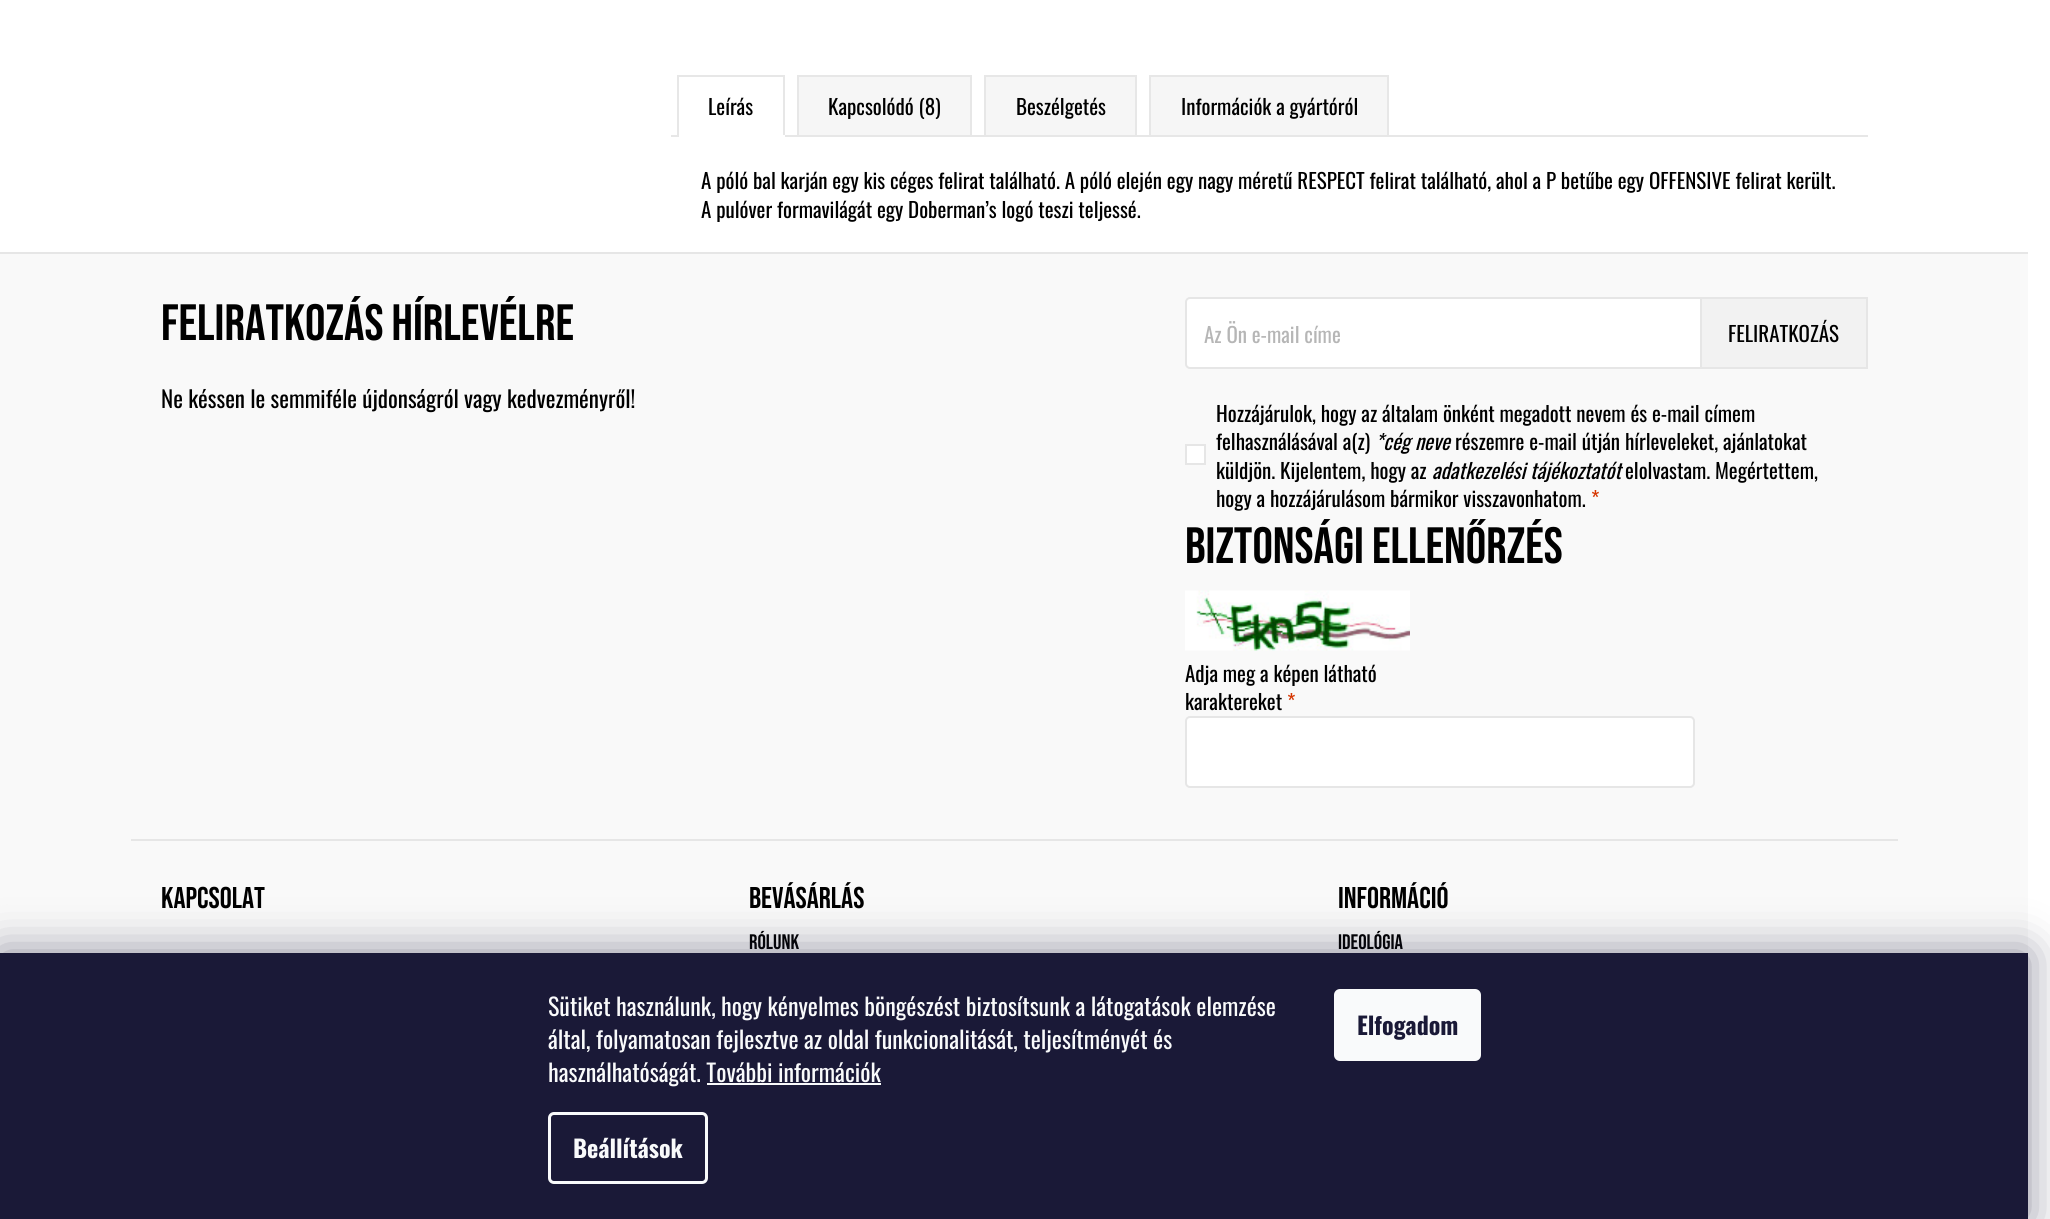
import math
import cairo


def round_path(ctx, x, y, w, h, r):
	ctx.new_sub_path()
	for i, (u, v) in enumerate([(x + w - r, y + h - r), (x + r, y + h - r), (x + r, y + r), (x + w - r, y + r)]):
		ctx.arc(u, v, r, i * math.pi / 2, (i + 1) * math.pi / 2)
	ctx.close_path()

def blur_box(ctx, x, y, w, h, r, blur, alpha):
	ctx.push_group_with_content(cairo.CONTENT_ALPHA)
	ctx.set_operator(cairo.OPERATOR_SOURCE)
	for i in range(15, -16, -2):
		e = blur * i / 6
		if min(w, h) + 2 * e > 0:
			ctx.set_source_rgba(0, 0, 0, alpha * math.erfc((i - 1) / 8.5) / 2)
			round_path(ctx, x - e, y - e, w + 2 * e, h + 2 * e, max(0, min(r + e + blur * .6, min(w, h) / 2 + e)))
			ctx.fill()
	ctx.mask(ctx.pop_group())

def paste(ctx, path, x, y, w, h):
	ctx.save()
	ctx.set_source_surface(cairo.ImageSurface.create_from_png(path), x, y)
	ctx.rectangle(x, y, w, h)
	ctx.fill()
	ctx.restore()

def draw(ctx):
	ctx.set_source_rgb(1, 1, 1)
	ctx.paint()
	ctx.set_source_rgb(0.906, 0.906, 0.906)
	ctx.rectangle(671, 135, 1197, 2)
	ctx.rectangle(677, 75, 108, 2)
	ctx.rectangle(783, 75, 2, 62)
	ctx.fill()
	ctx.set_source_rgb(1, 1, 1)
	ctx.rectangle(677, 135, 108, 2)
	ctx.fill()
	ctx.set_source_rgb(0.906, 0.906, 0.906)
	ctx.rectangle(677, 75, 2, 62)
	ctx.fill()
	ctx.select_font_face('Oswald')
	ctx.set_font_size(21)
	ctx.set_source_rgb(0, 0, 0)
	ctx.move_to(708, 115)
	ctx.show_text('Leírás')
	ctx.set_source_rgb(0.961, 0.961, 0.961)
	ctx.rectangle(798, 76, 173, 60)
	ctx.fill_preserve()
	ctx.set_source_rgb(0.906, 0.906, 0.906)
	ctx.stroke()
	ctx.set_source_rgb(0, 0, 0)
	ctx.move_to(828, 115)
	ctx.show_text('Kapcsolódó (8)')
	ctx.set_source_rgb(0.961, 0.961, 0.961)
	ctx.rectangle(985, 76, 151, 60)
	ctx.fill_preserve()
	ctx.set_source_rgb(0.906, 0.906, 0.906)
	ctx.stroke()
	ctx.set_source_rgb(0, 0, 0)
	ctx.move_to(1016, 115)
	ctx.show_text('Beszélgetés')
	ctx.set_source_rgb(0.961, 0.961, 0.961)
	ctx.rectangle(1150, 76, 238, 60)
	ctx.fill_preserve()
	ctx.set_source_rgb(0.906, 0.906, 0.906)
	ctx.stroke()
	ctx.set_source_rgb(0, 0, 0)
	for x, y, s in [
		(1181, 115, 'Információk a gyártóról'),
		(701, 189, 'A póló bal karján egy kis céges felirat található. A póló elején egy nagy méretű RESPECT felirat található, ahol a P betűbe egy OFFENSIVE felirat került.'),
		(701, 218, 'A pulóver formavilágát egy Doberman’s logó teszi teljessé.'),
	]:
		ctx.move_to(x, y)
		ctx.show_text(s)
	ctx.set_source_rgb(0.976, 0.976, 0.976)
	ctx.rectangle(0, 254, 2028, 699)
	ctx.fill()
	ctx.set_source_rgb(0.902, 0.902, 0.902)
	ctx.rectangle(0, 252, 2028, 2)
	ctx.rectangle(131, 839, 1767, 2)
	ctx.fill()
	ctx.select_font_face('Bebas Neue')
	ctx.set_font_size(51)
	ctx.set_source_rgb(0, 0, 0)
	ctx.move_to(161, 340)
	ctx.show_text('Feliratkozás hírlevélre')
	ctx.select_font_face('Oswald')
	ctx.set_font_size(23.1)
	ctx.move_to(161, 408)
	ctx.show_text('Ne késsen le semmiféle újdonságról vagy kedvezményről!')
	ctx.set_source_rgb(1, 1, 1)
	round_path(ctx, 1186, 298, 681, 70, 4)
	ctx.fill_preserve()
	ctx.set_source_rgb(0.902, 0.902, 0.902)
	ctx.stroke()
	ctx.set_font_size(21)
	ctx.set_source_rgb(0.714, 0.714, 0.714)
	ctx.move_to(1204, 343)
	ctx.show_text('Az Ön e-mail címe')
	ctx.set_source_rgb(0.949, 0.949, 0.949)
	ctx.rectangle(1701, 298, 166, 70)
	ctx.fill_preserve()
	ctx.set_source_rgb(0.902, 0.902, 0.902)
	ctx.stroke()
	ctx.set_source_rgb(0, 0, 0)
	ctx.move_to(1728, 342)
	ctx.show_text('FELIRATKOZÁS')
	ctx.move_to(1216, 422)
	ctx.show_text('Hozzájárulok, hogy az általam önként megadott nevem és e-mail címem')
	ctx.set_source_rgb(1, 1, 1)
	ctx.rectangle(1186, 445, 19, 19)
	ctx.fill_preserve()
	ctx.set_source_rgb(0.902, 0.902, 0.902)
	ctx.stroke()
	ctx.set_source_rgb(0, 0, 0)
	ctx.move_to(1216, 450)
	ctx.show_text('felhasználásával a(z)')
	ctx.select_font_face('Oswald', cairo.FONT_SLANT_ITALIC)
	ctx.move_to(1375, 450)
	ctx.show_text('*cég neve')
	ctx.select_font_face('Oswald')
	ctx.move_to(1455, 450)
	ctx.show_text('részemre e-mail útján hírleveleket, ajánlatokat')
	ctx.move_to(1216, 479)
	ctx.show_text('küldjön. Kijelentem, hogy az')
	ctx.select_font_face('Oswald', cairo.FONT_SLANT_ITALIC)
	ctx.move_to(1432, 479)
	ctx.show_text('adatkezelési tájékoztatót')
	ctx.select_font_face('Oswald')
	ctx.move_to(1625, 479)
	ctx.show_text('elolvastam. Megértettem,')
	ctx.move_to(1216, 507)
	ctx.show_text('hogy a hozzájárulásom bármikor visszavonhatom.')
	ctx.set_source_rgb(0.839, 0.208, 0)
	ctx.move_to(1591, 507)
	ctx.show_text('*')
	ctx.select_font_face('Bebas Neue')
	ctx.set_font_size(51)
	ctx.set_source_rgb(0, 0, 0)
	ctx.move_to(1185, 563)
	ctx.show_text('Biztonsági ellenőrzés')
	paste(ctx, 'media/1.png', 1185, 590, 225, 61)
	ctx.select_font_face('Oswald')
	ctx.set_font_size(21)
	ctx.move_to(1185, 682)
	ctx.show_text('Adja meg a képen látható')
	ctx.move_to(1185, 710)
	ctx.show_text('karaktereket')
	ctx.set_source_rgb(0.839, 0.208, 0)
	ctx.move_to(1287, 710)
	ctx.show_text('*')
	ctx.set_source_rgb(1, 1, 1)
	round_path(ctx, 1186, 717, 508, 70, 4)
	ctx.fill_preserve()
	ctx.set_source_rgb(0.902, 0.902, 0.902)
	ctx.stroke()
	ctx.select_font_face('Bebas Neue')
	ctx.set_font_size(30)
	ctx.set_source_rgb(0, 0, 0)
	ctx.move_to(161, 908)
	ctx.show_text('Kapcsolat')
	ctx.move_to(749, 908)
	ctx.show_text('Bevásárlás')
	ctx.set_font_size(21)
	ctx.move_to(749, 949)
	ctx.show_text('Rólunk')
	ctx.set_font_size(30)
	ctx.move_to(1338, 908)
	ctx.show_text('Információ')
	ctx.set_font_size(21)
	ctx.move_to(1338, 949)
	ctx.show_text('Ideológia')
	ctx.set_source_rgb(0.106, 0.098, 0.224)
	blur_box(ctx, 0, 953, 2028, 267, 0, 22.5, 0.5)
	ctx.set_source_rgb(0.102, 0.098, 0.216)
	ctx.rectangle(0, 953, 2028, 266)
	ctx.fill()
	ctx.select_font_face('Oswald')
	ctx.set_font_size(24)
	ctx.set_source_rgb(0.973, 0.98, 0.984)
	for x, y, s in [
		(548, 1016, 'Sütiket használunk, hogy kényelmes böngészést biztosítsunk a látogatások elemzése'),
		(548, 1049, 'által, folyamatosan fejlesztve az oldal funkcionalitását, teljesítményét és'),
		(548, 1082, 'használhatóságát. További információk'),
	]:
		ctx.move_to(x, y)
		ctx.show_text(s)
	ctx.rectangle(707, 1083, 174, 2)
	ctx.fill()
	round_path(ctx, 549.5, 1113.5, 157, 69, 4.5)
	ctx.set_line_width(3)
	ctx.stroke()
	ctx.select_font_face('Oswald', cairo.FONT_SLANT_NORMAL, cairo.FONT_WEIGHT_BOLD)
	ctx.move_to(573, 1158)
	ctx.show_text('Beállítások')
	round_path(ctx, 1334, 989, 147, 72, 6)
	ctx.fill()
	ctx.set_source_rgb(0.102, 0.098, 0.216)
	ctx.move_to(1357, 1035)
	ctx.show_text('Elfogadom')


surface = cairo.ImageSurface(cairo.FORMAT_RGB24, 2050, 1219)
ctx = cairo.Context(surface)
options = cairo.FontOptions()
options.set_hint_metrics(cairo.HINT_METRICS_OFF)
options.set_hint_style(cairo.HINT_STYLE_NONE)
ctx.set_font_options(options)
ctx.set_miter_limit(4)
draw(ctx)
surface.write_to_png('image.png')
